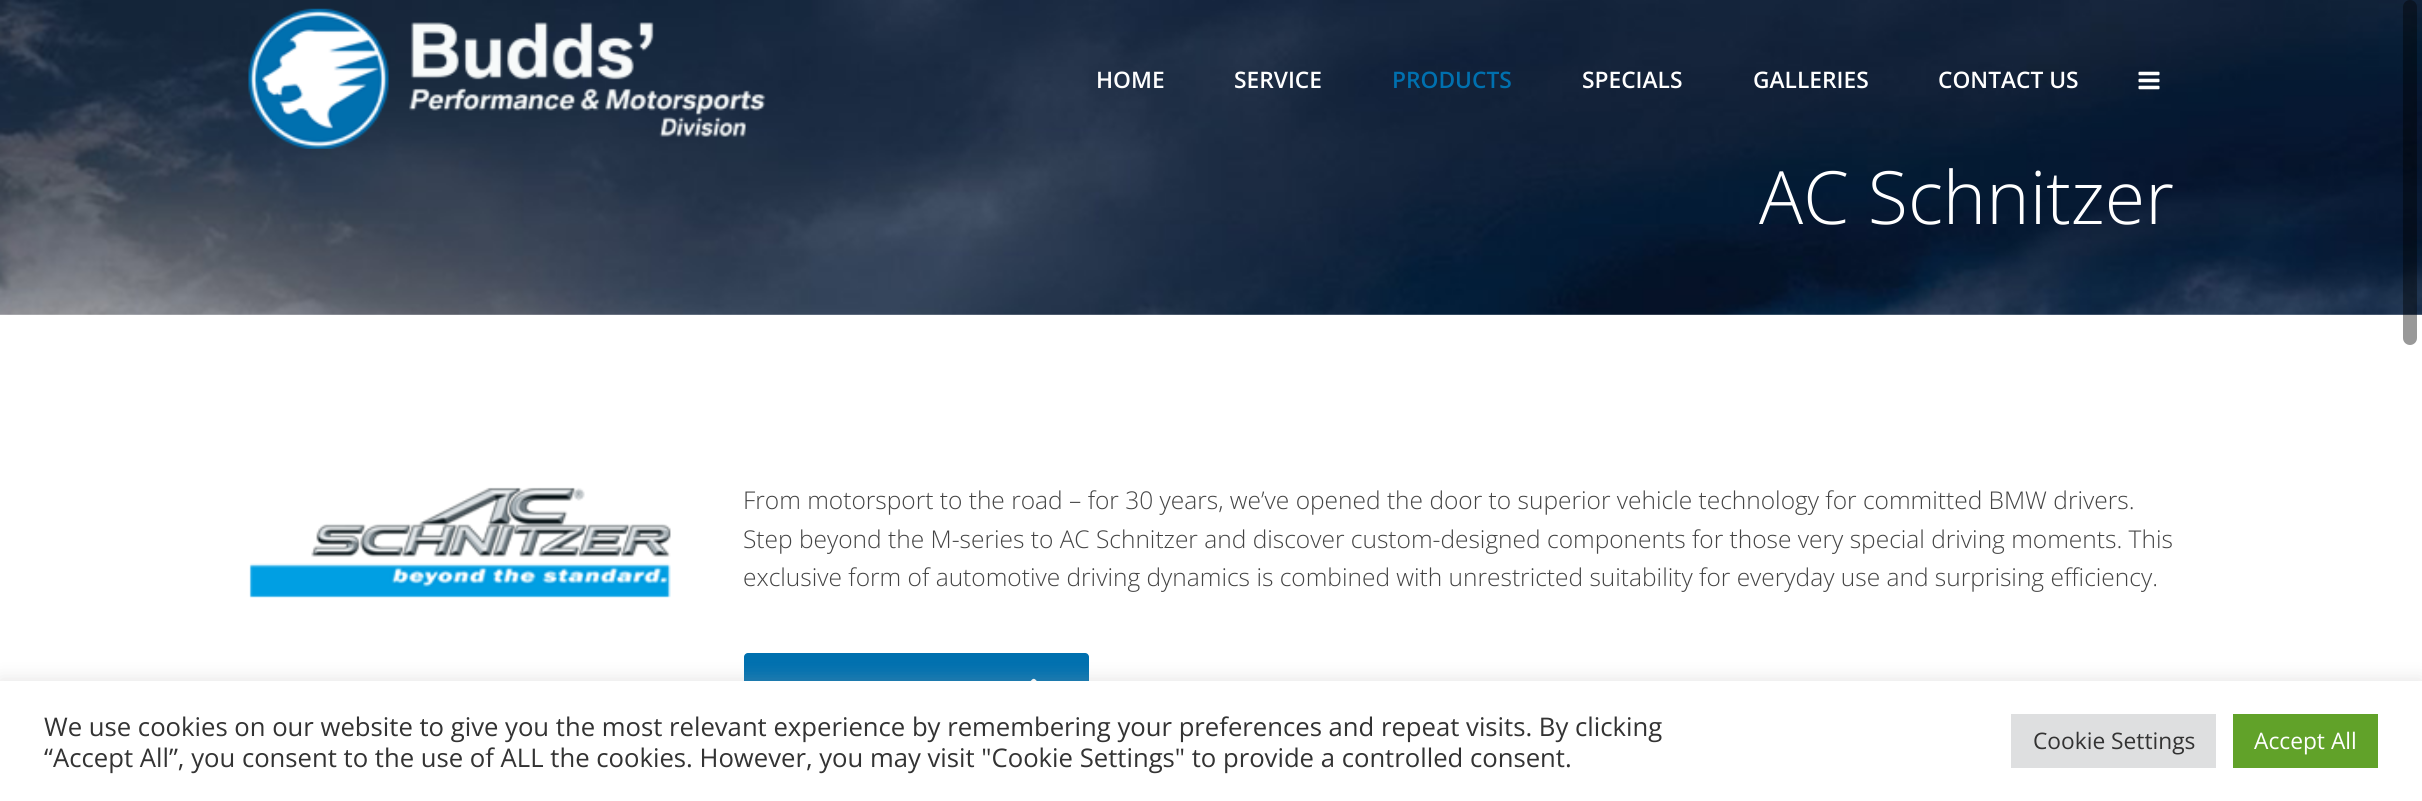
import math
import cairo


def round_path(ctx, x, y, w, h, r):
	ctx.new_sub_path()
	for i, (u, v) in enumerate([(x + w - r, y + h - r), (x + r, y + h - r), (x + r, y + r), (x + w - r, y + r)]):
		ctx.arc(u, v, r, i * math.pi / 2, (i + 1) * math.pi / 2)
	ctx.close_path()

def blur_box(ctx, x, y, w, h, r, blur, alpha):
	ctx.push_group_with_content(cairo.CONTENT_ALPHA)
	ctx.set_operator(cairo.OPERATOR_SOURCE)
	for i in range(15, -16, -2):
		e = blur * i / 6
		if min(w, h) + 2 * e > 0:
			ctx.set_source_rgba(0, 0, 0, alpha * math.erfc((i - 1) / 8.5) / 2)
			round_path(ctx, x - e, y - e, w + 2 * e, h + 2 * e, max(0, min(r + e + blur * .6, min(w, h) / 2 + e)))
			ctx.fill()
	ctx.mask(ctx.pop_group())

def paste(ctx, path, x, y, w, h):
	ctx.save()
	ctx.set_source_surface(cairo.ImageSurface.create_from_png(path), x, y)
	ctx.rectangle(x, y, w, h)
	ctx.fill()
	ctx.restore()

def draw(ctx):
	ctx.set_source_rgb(1, 1, 1)
	ctx.paint()
	paste(ctx, 'media/3.png', 0, 0, 2422, 315)
	paste(ctx, 'media/1.png', 248, 8, 518, 141)
	ctx.select_font_face('Open Sans SemiBold')
	ctx.set_font_size(22.75)
	ctx.set_source_rgb(1, 1, 1)
	ctx.move_to(1096, 88)
	ctx.show_text('HOME')
	ctx.move_to(1234, 88)
	ctx.show_text('SERVICE')
	ctx.set_source_rgb(0, 0.439, 0.686)
	ctx.move_to(1392, 88)
	ctx.show_text('PRODUCTS')
	ctx.set_source_rgb(1, 1, 1)
	for x, y, s in [
		(1582, 88, 'SPECIALS'),
		(1753, 88, 'GALLERIES'),
		(1938, 88, 'CONTACT US'),
	]:
		ctx.move_to(x, y)
		ctx.show_text(s)
	paste(ctx, 'media/2.png', 2138, 71, 22, 19)
	ctx.select_font_face('Open Sans Light')
	ctx.set_font_size(73.5)
	ctx.move_to(1759, 224)
	ctx.show_text('AC Schnitzer')
	paste(ctx, 'media/4.png', 249, 487, 422, 111)
	ctx.set_font_size(24.5)
	ctx.set_source_rgb(0.267, 0.267, 0.267)
	for x, y, s in [
		(743, 509, 'From motorsport to the road – for 30 years, we’ve opened the door to superior vehicle technology for committed BMW drivers.'),
		(743, 548, 'Step beyond the M-series to AC Schnitzer and discover custom-designed components for those very special driving moments. This'),
		(743, 586, 'exclusive form of automotive driving dynamics is combined with unrestricted suitability for everyday use and surprising efficiency.'),
	]:
		ctx.move_to(x, y)
		ctx.show_text(s)
	ctx.set_source_rgb(0, 0.439, 0.686)
	round_path(ctx, 744, 653, 345, 75, 4)
	ctx.fill()
	paste(ctx, 'media/5.png', 1030, 678, 7, 3)
	ctx.set_source_rgba(0, 0, 0, 0.4)
	round_path(ctx, 2403, 0, 14, 345, 7)
	ctx.fill()
	ctx.set_source_rgb(0.675, 0.671, 0.671)
	blur_box(ctx, 0, 679, 2422, 121, 0, 9, 0.3)
	ctx.set_source_rgb(1, 1, 1)
	ctx.rectangle(0, 681, 2422, 120)
	ctx.fill()
	ctx.select_font_face('Open Sans')
	ctx.set_font_size(25.67)
	ctx.set_source_rgb(0.2, 0.2, 0.2)
	ctx.move_to(44, 736)
	ctx.show_text('We use cookies on our website to give you the most relevant experience by remembering your preferences and repeat visits. By clicking')
	ctx.move_to(44, 767)
	ctx.show_text('“Accept All”, you consent to the use of ALL the cookies. However, you may visit "Cookie Settings" to provide a controlled consent.')
	ctx.set_source_rgb(0.871, 0.875, 0.878)
	ctx.rectangle(2011, 714, 205, 54)
	ctx.fill()
	ctx.set_font_size(22.75)
	ctx.set_source_rgb(0.2, 0.2, 0.2)
	ctx.move_to(2033, 749)
	ctx.show_text('Cookie Settings')
	ctx.set_source_rgb(0.38, 0.635, 0.161)
	ctx.rectangle(2233, 714, 145, 54)
	ctx.fill()
	ctx.set_source_rgb(1, 1, 1)
	ctx.move_to(2254, 749)
	ctx.show_text('Accept All')


surface = cairo.ImageSurface(cairo.FORMAT_RGB24, 2422, 801)
ctx = cairo.Context(surface)
options = cairo.FontOptions()
options.set_hint_metrics(cairo.HINT_METRICS_OFF)
options.set_hint_style(cairo.HINT_STYLE_NONE)
ctx.set_font_options(options)
ctx.set_miter_limit(4)
draw(ctx)
surface.write_to_png('image.png')
